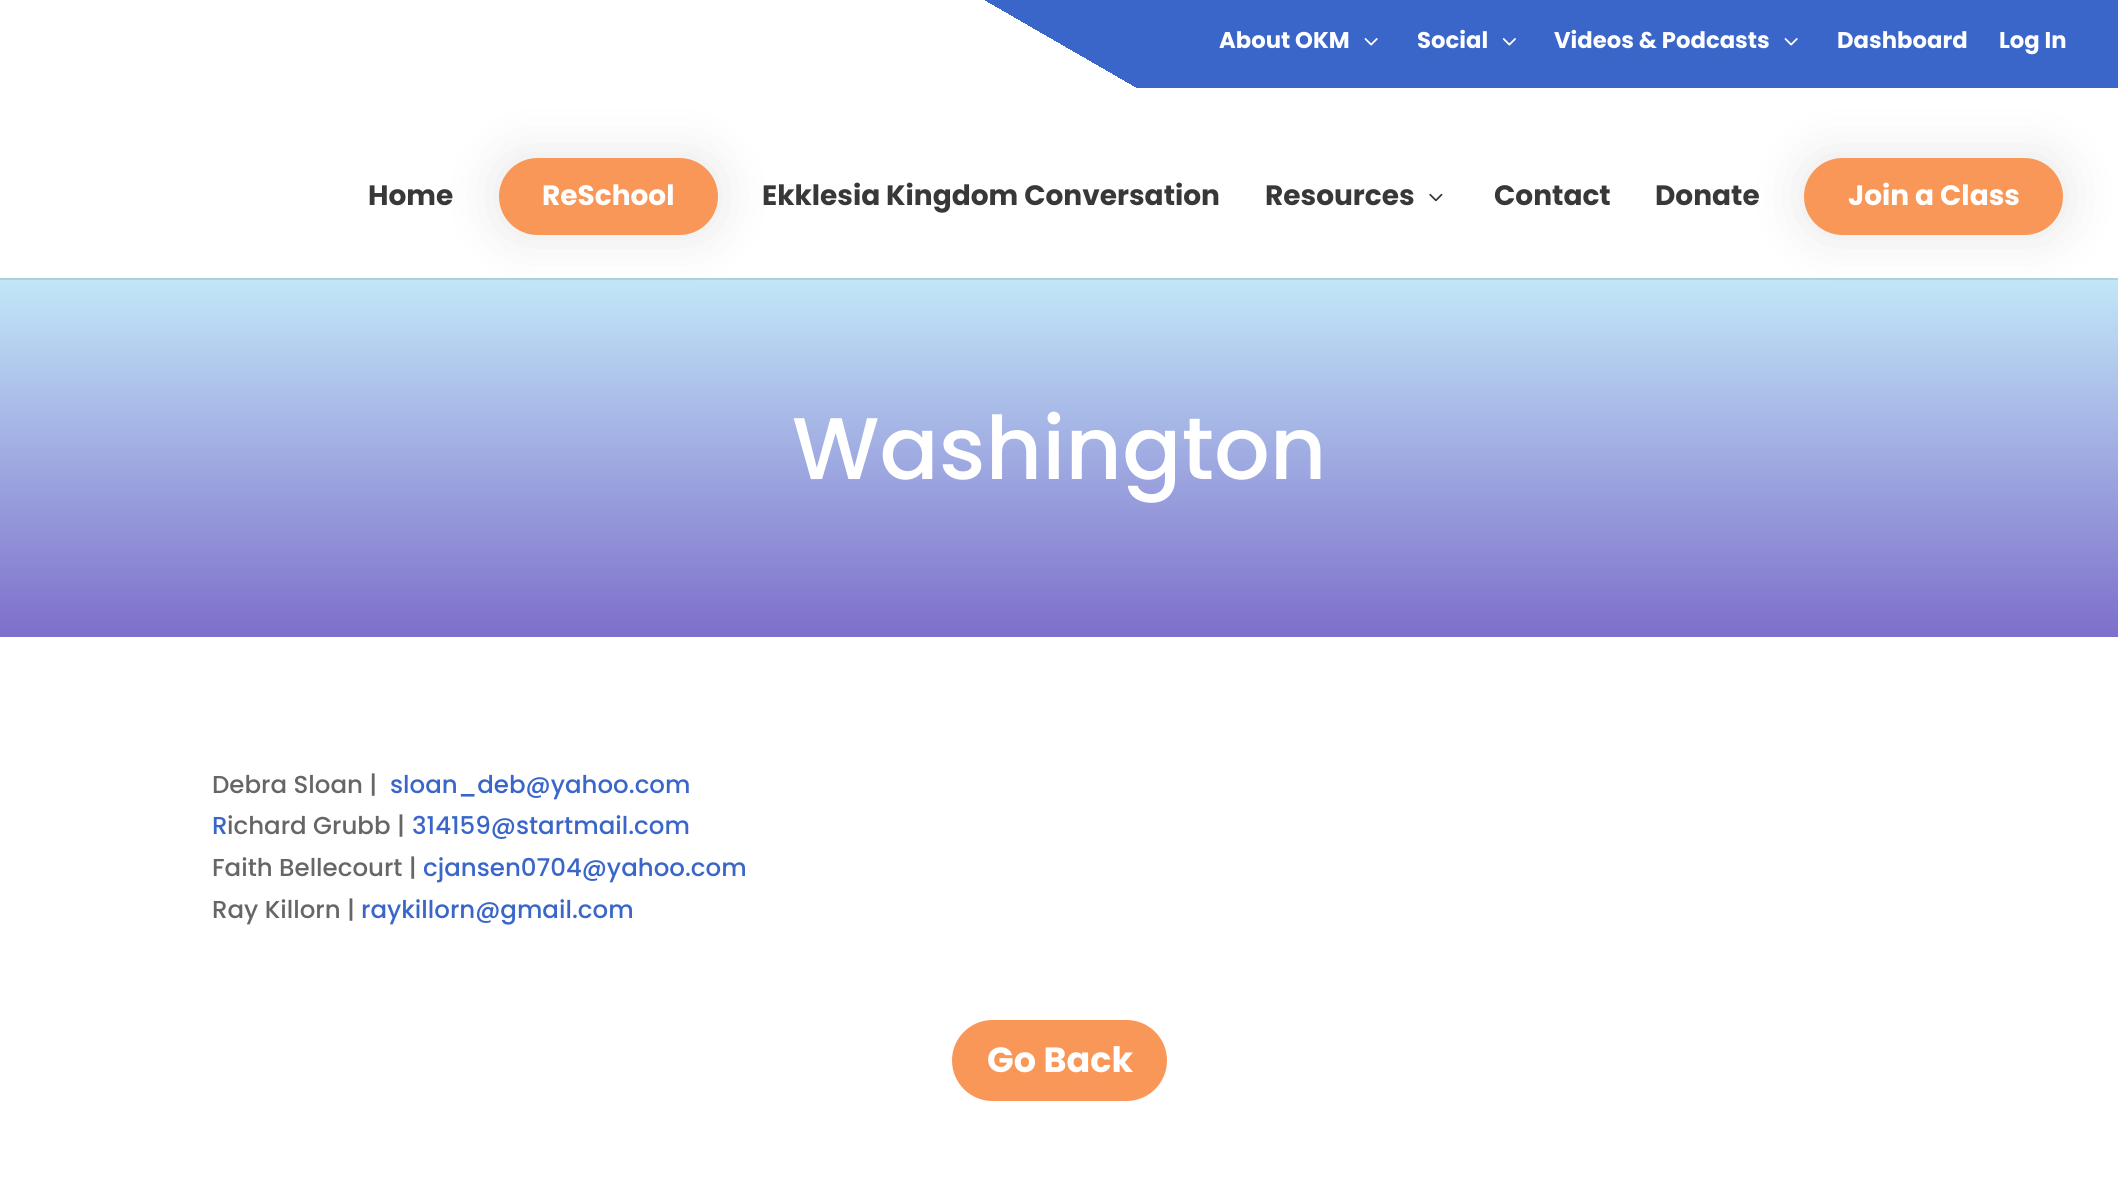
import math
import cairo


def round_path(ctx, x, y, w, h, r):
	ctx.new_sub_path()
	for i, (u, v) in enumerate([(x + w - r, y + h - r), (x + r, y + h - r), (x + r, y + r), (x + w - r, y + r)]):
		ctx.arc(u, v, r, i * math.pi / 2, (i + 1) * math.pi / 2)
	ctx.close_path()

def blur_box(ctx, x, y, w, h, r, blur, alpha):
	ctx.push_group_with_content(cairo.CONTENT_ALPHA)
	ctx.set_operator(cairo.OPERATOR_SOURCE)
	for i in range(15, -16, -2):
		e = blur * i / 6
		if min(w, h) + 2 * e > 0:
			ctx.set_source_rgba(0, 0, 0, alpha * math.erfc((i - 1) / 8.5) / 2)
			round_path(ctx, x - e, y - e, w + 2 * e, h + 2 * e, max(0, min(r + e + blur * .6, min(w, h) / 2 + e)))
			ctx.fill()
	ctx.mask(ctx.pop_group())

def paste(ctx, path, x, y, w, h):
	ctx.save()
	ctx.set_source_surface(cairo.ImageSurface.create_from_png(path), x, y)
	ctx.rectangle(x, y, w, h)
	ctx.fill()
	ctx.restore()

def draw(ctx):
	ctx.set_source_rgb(1, 1, 1)
	ctx.paint()
	gradient = cairo.LinearGradient(776, 535, 1343, -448)
	gradient.add_color_stop_rgba(0.5, 1, 1, 1, 1)
	gradient.add_color_stop_rgba(0.5, 0.227, 0.4, 0.792, 1)
	ctx.set_source(gradient)
	ctx.rectangle(985, 0, 1133, 88)
	ctx.fill()
	ctx.select_font_face('Poppins', cairo.FONT_SLANT_NORMAL, cairo.FONT_WEIGHT_BOLD)
	ctx.set_font_size(22.75)
	ctx.set_source_rgb(1, 1, 1)
	ctx.move_to(1219, 48)
	ctx.show_text('About OKM')
	paste(ctx, 'media/1.png', 1364, 38, 14, 8)
	ctx.move_to(1417, 48)
	ctx.show_text('Social')
	paste(ctx, 'media/2.png', 1502, 38, 14, 8)
	ctx.move_to(1554, 48)
	ctx.show_text('Videos & Podcasts')
	paste(ctx, 'media/1.png', 1784, 38, 14, 8)
	ctx.move_to(1837, 48)
	ctx.show_text('Dashboard')
	ctx.move_to(1999, 48)
	ctx.show_text('Log In')
	ctx.set_source_rgb(0.686, 0.816, 0.875)
	ctx.rectangle(0, 278, 2118, 2)
	ctx.fill()
	ctx.set_font_size(28)
	ctx.set_source_rgb(0.22, 0.22, 0.22)
	ctx.move_to(368, 205)
	ctx.show_text('Home')
	gradient = cairo.LinearGradient(1060, 278, 1060, 637)
	gradient.add_color_stop_rgba(0, 0.761, 0.906, 0.973, 1)
	gradient.add_color_stop_rgba(1, 0.49, 0.435, 0.796, 1)
	ctx.set_source(gradient)
	ctx.rectangle(0, 280, 2118, 357)
	ctx.fill()
	ctx.set_source_rgb(0, 0, 0)
	blur_box(ctx, 497, 156, 222, 80, 40, 26, 0.1)
	ctx.set_source_rgb(0.969, 0.592, 0.341)
	round_path(ctx, 499, 158, 219, 77, 38.5)
	ctx.fill()
	ctx.set_source_rgb(1, 1, 1)
	ctx.move_to(542, 205)
	ctx.show_text('ReSchool')
	ctx.set_source_rgb(0.22, 0.22, 0.22)
	ctx.move_to(762, 205)
	ctx.show_text('Ekklesia Kingdom Conversation')
	ctx.move_to(1265, 205)
	ctx.show_text('Resources')
	paste(ctx, 'media/3.png', 1429, 193, 14, 9)
	ctx.move_to(1494, 205)
	ctx.show_text('Contact')
	ctx.move_to(1655, 205)
	ctx.show_text('Donate')
	ctx.set_source_rgb(0, 0, 0)
	blur_box(ctx, 1803, 156, 262, 80, 40, 26, 0.1)
	ctx.set_source_rgb(0.969, 0.592, 0.341)
	round_path(ctx, 1804, 158, 259, 77, 38.5)
	ctx.fill()
	ctx.set_source_rgb(1, 1, 1)
	ctx.move_to(1848, 205)
	ctx.show_text('Join a Class')
	ctx.select_font_face('Poppins Medium')
	ctx.set_font_size(87.5)
	ctx.move_to(792, 479)
	ctx.show_text('Washington')
	ctx.set_font_size(24.5)
	ctx.set_source_rgb(0.4, 0.4, 0.4)
	ctx.move_to(212, 793)
	ctx.show_text('Debra Sloan |')
	ctx.set_source_rgb(0.227, 0.4, 0.792)
	ctx.move_to(390, 793)
	ctx.show_text('sloan_deb@yahoo.com')
	ctx.move_to(212, 834)
	ctx.show_text('R')
	ctx.set_source_rgb(0.4, 0.4, 0.4)
	ctx.move_to(227, 834)
	ctx.show_text('ichard Grubb |')
	ctx.set_source_rgb(0.227, 0.4, 0.792)
	ctx.move_to(412, 834)
	ctx.show_text('314159@startmail.com')
	ctx.set_source_rgb(0.4, 0.4, 0.4)
	ctx.move_to(212, 876)
	ctx.show_text('Faith Bellecourt |')
	ctx.set_source_rgb(0.227, 0.4, 0.792)
	ctx.move_to(423, 876)
	ctx.show_text('cjansen0704@yahoo.com')
	ctx.set_source_rgb(0.4, 0.4, 0.4)
	ctx.move_to(212, 918)
	ctx.show_text('Ray Killorn |')
	ctx.set_source_rgb(0.227, 0.4, 0.792)
	ctx.move_to(361, 918)
	ctx.show_text('raykillorn@gmail.com')
	ctx.set_source_rgb(0.969, 0.592, 0.341)
	round_path(ctx, 952, 1020, 215, 81, 40.5)
	ctx.fill()
	ctx.select_font_face('Poppins', cairo.FONT_SLANT_NORMAL, cairo.FONT_WEIGHT_BOLD)
	ctx.set_font_size(35)
	ctx.set_source_rgb(1, 1, 1)
	ctx.move_to(987, 1072)
	ctx.show_text('Go Back')


surface = cairo.ImageSurface(cairo.FORMAT_RGB24, 2118, 1203)
ctx = cairo.Context(surface)
options = cairo.FontOptions()
options.set_hint_metrics(cairo.HINT_METRICS_OFF)
options.set_hint_style(cairo.HINT_STYLE_NONE)
ctx.set_font_options(options)
ctx.set_miter_limit(4)
draw(ctx)
surface.write_to_png('image.png')
